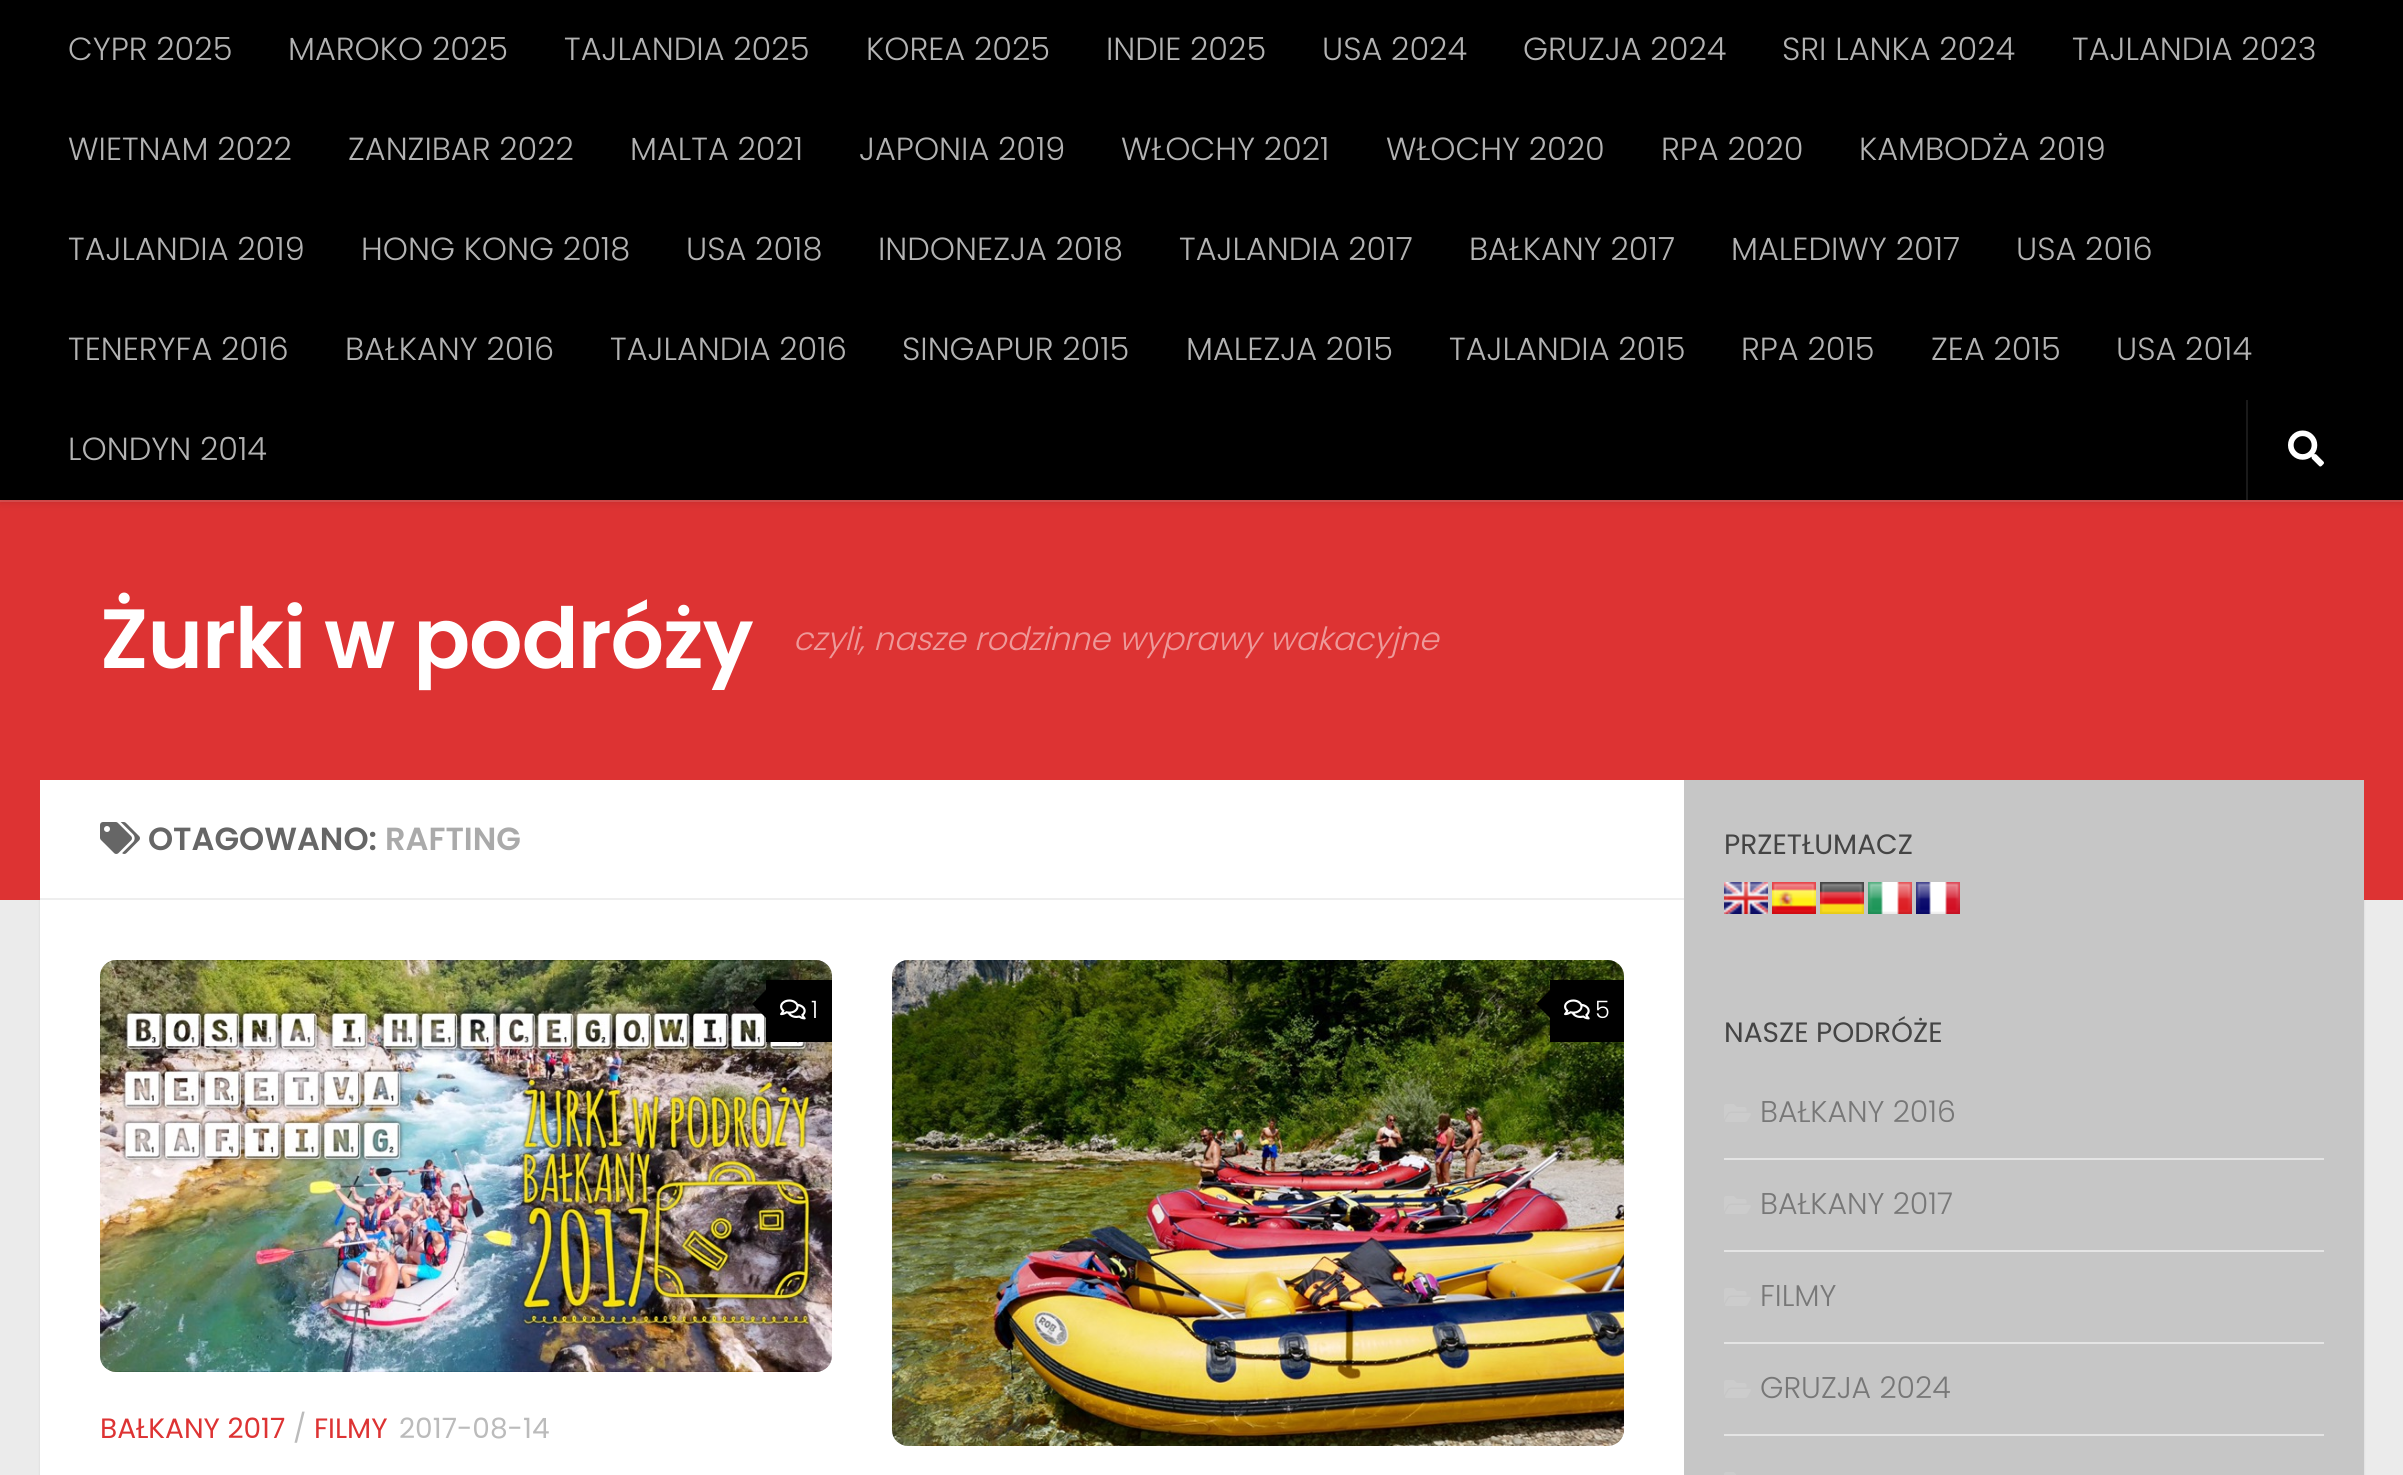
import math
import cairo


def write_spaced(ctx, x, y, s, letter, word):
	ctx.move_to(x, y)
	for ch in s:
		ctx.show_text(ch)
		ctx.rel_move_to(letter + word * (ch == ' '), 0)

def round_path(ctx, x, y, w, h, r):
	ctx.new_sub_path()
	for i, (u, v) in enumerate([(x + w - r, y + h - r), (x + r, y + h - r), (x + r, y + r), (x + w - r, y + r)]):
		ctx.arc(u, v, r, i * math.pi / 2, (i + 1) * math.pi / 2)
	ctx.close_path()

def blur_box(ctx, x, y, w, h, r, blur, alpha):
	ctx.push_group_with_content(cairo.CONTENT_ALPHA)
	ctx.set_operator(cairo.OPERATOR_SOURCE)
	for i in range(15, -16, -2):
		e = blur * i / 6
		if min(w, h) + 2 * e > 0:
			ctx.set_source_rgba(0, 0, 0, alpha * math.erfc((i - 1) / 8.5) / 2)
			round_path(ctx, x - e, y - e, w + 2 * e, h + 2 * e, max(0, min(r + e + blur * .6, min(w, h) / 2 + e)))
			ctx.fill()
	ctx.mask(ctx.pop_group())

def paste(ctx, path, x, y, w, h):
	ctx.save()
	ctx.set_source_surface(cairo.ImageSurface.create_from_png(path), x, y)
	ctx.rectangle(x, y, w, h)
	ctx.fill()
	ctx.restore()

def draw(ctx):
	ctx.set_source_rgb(0.918, 0.918, 0.918)
	ctx.paint()
	ctx.set_source_rgb(0, 0, 0)
	blur_box(ctx, 40, 782, 2324, 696, 0, 1, 0.1)
	ctx.set_source_rgb(0.867, 0.2, 0.2)
	ctx.rectangle(0, 502, 2403, 398)
	ctx.fill()
	ctx.set_source_rgb(0.886, 0.322, 0.322)
	ctx.rectangle(0, 500, 2403, 2)
	ctx.fill()
	ctx.set_source_rgb(0, 0, 0)
	blur_box(ctx, 0, 0, 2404, 500, 0, 5, 0.2)
	ctx.set_source_rgb(0, 0, 0)
	ctx.rectangle(0, 0, 2403, 500)
	ctx.fill()
	ctx.select_font_face('Poppins Light')
	ctx.set_font_size(32)
	ctx.set_source_rgb(0.702, 0.702, 0.702)
	for x, y, s in [
		(68, 60, 'CYPR 2025'),
		(288, 60, 'MAROKO 2025'),
		(564, 60, 'TAJLANDIA 2025'),
		(866, 60, 'KOREA 2025'),
		(1106, 60, 'INDIE 2025'),
		(1322, 60, 'USA 2024'),
		(1523, 60, 'GRUZJA 2024'),
		(1782, 60, 'SRI LANKA 2024'),
		(2072, 60, 'TAJLANDIA 2023'),
		(68, 160, 'WIETNAM 2022'),
		(348, 160, 'ZANZIBAR 2022'),
		(630, 160, 'MALTA 2021'),
		(859, 160, 'JAPONIA 2019'),
		(1121, 160, 'WŁOCHY 2021'),
		(1386, 160, 'WŁOCHY 2020'),
		(1661, 160, 'RPA 2020'),
		(1859, 160, 'KAMBODŻA 2019'),
		(68, 260, 'TAJLANDIA 2019'),
		(361, 260, 'HONG KONG 2018'),
		(686, 260, 'USA 2018'),
		(878, 260, 'INDONEZJA 2018'),
		(1179, 260, 'TAJLANDIA 2017'),
		(1469, 260, 'BAŁKANY 2017'),
		(1731, 260, 'MALEDIWY 2017'),
		(2016, 260, 'USA 2016'),
		(68, 360, 'TENERYFA 2016'),
		(345, 360, 'BAŁKANY 2016'),
		(610, 360, 'TAJLANDIA 2016'),
		(902, 360, 'SINGAPUR 2015'),
		(1186, 360, 'MALEZJA 2015'),
		(1449, 360, 'TAJLANDIA 2015'),
		(1741, 360, 'RPA 2015'),
		(1931, 360, 'ZEA 2015'),
		(2116, 360, 'USA 2014'),
		(68, 460, 'LONDYN 2014'),
	]:
		ctx.move_to(x, y)
		ctx.show_text(s)
	ctx.set_source_rgb(0.102, 0.102, 0.102)
	ctx.rectangle(2246, 400, 2, 100)
	ctx.fill()
	paste(ctx, 'media/1.png', 2288, 430, 36, 37)
	ctx.select_font_face('Poppins SemiBold')
	ctx.set_font_size(84)
	ctx.set_source_rgb(1, 1, 1)
	write_spaced(ctx, 100, 668, 'Żurki w podróży', -1, 0)
	ctx.select_font_face('Poppins Light', cairo.FONT_SLANT_ITALIC)
	ctx.set_font_size(32)
	ctx.set_source_rgb(0.933, 0.6, 0.6)
	ctx.move_to(793, 650)
	ctx.show_text('czyli, nasze rodzinne wyprawy wakacyjne')
	ctx.set_source_rgb(1, 1, 1)
	ctx.rectangle(40, 780, 1644, 695)
	ctx.fill()
	ctx.set_source_rgb(0.933, 0.933, 0.933)
	ctx.rectangle(40, 898, 1644, 2)
	ctx.fill()
	paste(ctx, 'media/2.png', 100, 822, 40, 32)
	ctx.select_font_face('Poppins SemiBold')
	ctx.set_source_rgb(0.4, 0.4, 0.4)
	ctx.move_to(148, 850)
	ctx.show_text('OTAGOWANO:')
	ctx.set_source_rgb(0.667, 0.667, 0.667)
	ctx.move_to(385, 850)
	ctx.show_text('RAFTING')
	paste(ctx, 'media/3.png', 100, 960, 732, 412)
	ctx.set_source_rgb(0, 0, 0)
	ctx.rectangle(766, 980, 66, 62)
	ctx.fill()
	ctx.new_path()
	ctx.move_to(770, 986)
	ctx.line_to(770, 1022)
	ctx.line_to(752, 1004)
	ctx.close_path()
	ctx.fill()
	paste(ctx, 'media/4.png', 780, 999, 26, 21)
	ctx.select_font_face('Poppins Light')
	ctx.set_font_size(24)
	ctx.set_source_rgb(1, 1, 1)
	ctx.move_to(811, 1018)
	ctx.show_text('1')
	ctx.select_font_face('Poppins')
	ctx.set_font_size(28)
	ctx.set_source_rgb(0.867, 0.2, 0.2)
	ctx.move_to(100, 1438)
	ctx.show_text('BAŁKANY 2017')
	ctx.set_source_rgb(0.733, 0.733, 0.733)
	ctx.move_to(293, 1438)
	ctx.show_text('/')
	ctx.set_source_rgb(0.867, 0.2, 0.2)
	ctx.move_to(314, 1438)
	ctx.show_text('FILMY')
	ctx.set_source_rgb(0.733, 0.733, 0.733)
	ctx.move_to(399, 1438)
	ctx.show_text('2017-08-14')
	paste(ctx, 'media/5.png', 892, 960, 732, 486)
	ctx.set_source_rgb(0, 0, 0)
	ctx.rectangle(1550, 980, 74, 62)
	ctx.fill()
	ctx.new_path()
	ctx.move_to(1554, 986)
	ctx.line_to(1554, 1022)
	ctx.line_to(1536, 1004)
	ctx.close_path()
	ctx.fill()
	paste(ctx, 'media/4.png', 1564, 999, 26, 21)
	ctx.select_font_face('Poppins Light')
	ctx.set_font_size(24)
	ctx.set_source_rgb(1, 1, 1)
	ctx.move_to(1595, 1018)
	ctx.show_text('5')
	ctx.set_source_rgb(0.776, 0.776, 0.776)
	ctx.rectangle(1684, 780, 680, 695)
	ctx.fill()
	ctx.select_font_face('Poppins')
	ctx.set_font_size(28)
	ctx.set_source_rgb(0.267, 0.267, 0.267)
	ctx.move_to(1724, 854)
	ctx.show_text('PRZETŁUMACZ')
	paste(ctx, 'media/6.png', 1724, 882, 44, 32)
	paste(ctx, 'media/7.png', 1772, 882, 44, 32)
	paste(ctx, 'media/8.png', 1820, 882, 44, 32)
	paste(ctx, 'media/9.png', 1868, 882, 44, 32)
	paste(ctx, 'media/10.png', 1916, 882, 44, 32)
	ctx.move_to(1724, 1042)
	ctx.show_text('NASZE PODRÓŻE')
	ctx.set_source_rgb(0.894, 0.894, 0.894)
	ctx.rectangle(1724, 1158, 600, 2)
	ctx.fill()
	paste(ctx, 'media/11.png', 1724, 1104, 27, 18)
	ctx.select_font_face('Poppins Light')
	ctx.set_font_size(30)
	ctx.set_source_rgb(0.467, 0.467, 0.467)
	ctx.move_to(1760, 1122)
	ctx.show_text('BAŁKANY 2016')
	ctx.set_source_rgb(0.894, 0.894, 0.894)
	ctx.rectangle(1724, 1250, 600, 2)
	ctx.fill()
	paste(ctx, 'media/11.png', 1724, 1196, 27, 18)
	ctx.set_source_rgb(0.467, 0.467, 0.467)
	ctx.move_to(1760, 1214)
	ctx.show_text('BAŁKANY 2017')
	ctx.set_source_rgb(0.894, 0.894, 0.894)
	ctx.rectangle(1724, 1342, 600, 2)
	ctx.fill()
	paste(ctx, 'media/11.png', 1724, 1288, 27, 18)
	ctx.set_source_rgb(0.467, 0.467, 0.467)
	ctx.move_to(1760, 1306)
	ctx.show_text('FILMY')
	ctx.set_source_rgb(0.894, 0.894, 0.894)
	ctx.rectangle(1724, 1434, 600, 2)
	ctx.fill()
	paste(ctx, 'media/11.png', 1724, 1380, 27, 18)
	ctx.set_source_rgb(0.467, 0.467, 0.467)
	ctx.move_to(1760, 1398)
	ctx.show_text('GRUZJA 2024')
	paste(ctx, 'media/12.png', 1724, 1472, 12, 3)


surface = cairo.ImageSurface(cairo.FORMAT_RGB24, 2403, 1475)
ctx = cairo.Context(surface)
options = cairo.FontOptions()
options.set_hint_metrics(cairo.HINT_METRICS_OFF)
options.set_hint_style(cairo.HINT_STYLE_NONE)
ctx.set_font_options(options)
ctx.set_miter_limit(4)
draw(ctx)
surface.write_to_png('image.png')
